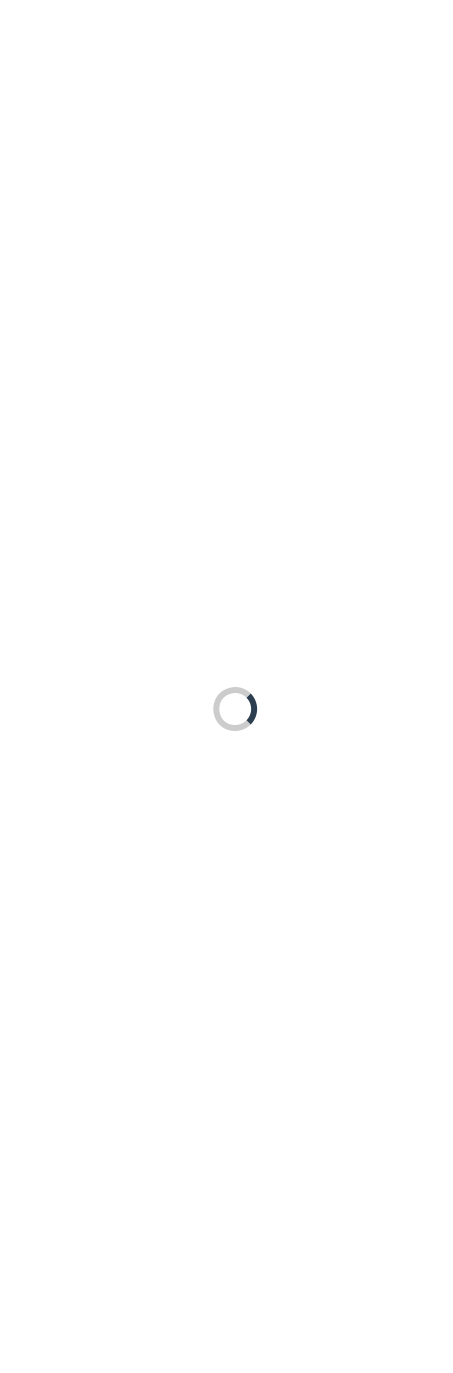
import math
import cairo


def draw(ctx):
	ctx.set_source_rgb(1, 1, 1)
	ctx.paint()
	ctx.new_path()
	ctx.move_to(248.5, 695.5)
	ctx.curve_to(256, 703, 256, 715, 248.5, 722.5)
	ctx.set_source_rgb(0.173, 0.243, 0.314)
	ctx.set_line_width(6)
	ctx.stroke()
	ctx.new_path()
	ctx.move_to(248.5, 722.5)
	ctx.curve_to(245, 726, 240, 728, 235, 728)
	ctx.curve_to(212.5, 728, 209, 695, 231.5, 690.5)
	ctx.curve_to(237.5, 689, 244, 691, 248.5, 695.5)
	ctx.set_source_rgb(0.8, 0.8, 0.8)
	ctx.stroke()


surface = cairo.ImageSurface(cairo.FORMAT_RGB24, 453, 1373)
ctx = cairo.Context(surface)
options = cairo.FontOptions()
options.set_hint_metrics(cairo.HINT_METRICS_OFF)
options.set_hint_style(cairo.HINT_STYLE_NONE)
ctx.set_font_options(options)
ctx.set_miter_limit(4)
draw(ctx)
surface.write_to_png('image.png')
